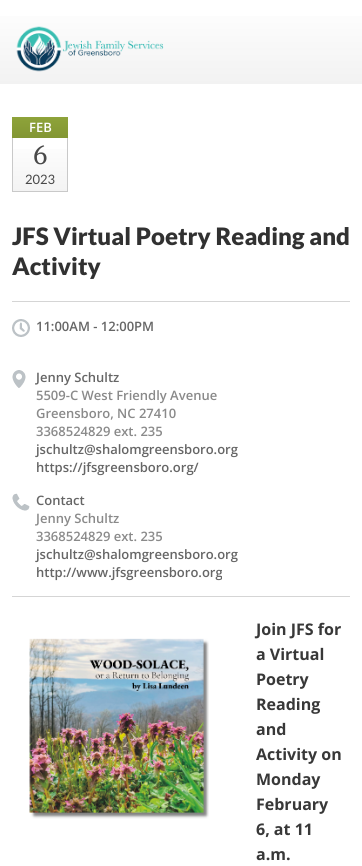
import math
import cairo


def paste(ctx, path, x, y, w, h):
	ctx.save()
	ctx.set_source_surface(cairo.ImageSurface.create_from_png(path), x, y)
	ctx.rectangle(x, y, w, h)
	ctx.fill()
	ctx.restore()

def draw(ctx):
	ctx.set_source_rgb(1, 1, 1)
	ctx.paint()
	gradient = cairo.LinearGradient(181, 0, 181, 84)
	gradient.add_color_stop_rgba(0, 1, 1, 1, 1)
	gradient.add_color_stop_rgba(1, 0.949, 0.949, 0.949, 1)
	ctx.set_source(gradient)
	ctx.rectangle(0, 16, 362, 68)
	ctx.fill()
	paste(ctx, 'media/1.png', 16, 26, 148, 46)
	gradient = cairo.LinearGradient(40, 117, 40, 138)
	gradient.add_color_stop_rgba(0, 0.557, 0.639, 0.227, 1)
	gradient.add_color_stop_rgba(1, 0.51, 0.588, 0.2, 1)
	ctx.set_source(gradient)
	ctx.rectangle(12, 117, 56, 21)
	ctx.fill()
	ctx.select_font_face('Open Sans SemiBold')
	ctx.set_font_size(13)
	ctx.set_source_rgb(1, 1, 1)
	ctx.move_to(29, 132)
	ctx.show_text('FEB')
	gradient = cairo.LinearGradient(40, 138, 40, 191)
	gradient.add_color_stop_rgba(0, 1, 1, 1, 1)
	gradient.add_color_stop_rgba(1, 0.953, 0.953, 0.953, 1)
	ctx.set_source(gradient)
	ctx.rectangle(13, 149, 54, 42)
	ctx.fill()
	ctx.set_source_rgb(0.788, 0.788, 0.788)
	ctx.rectangle(67, 138, 1, 54)
	ctx.rectangle(12, 191, 56, 1)
	ctx.rectangle(12, 138, 1, 54)
	ctx.fill()
	ctx.select_font_face('Merriweather')
	ctx.set_font_size(24)
	ctx.set_source_rgb(0.282, 0.282, 0.282)
	ctx.move_to(33, 164)
	ctx.show_text('6')
	ctx.select_font_face('Lato')
	ctx.set_font_size(13)
	ctx.move_to(25, 184)
	ctx.show_text('2023')
	ctx.select_font_face('Lato Black')
	ctx.set_font_size(24)
	ctx.set_source_rgb(0.192, 0.192, 0.192)
	ctx.move_to(12, 245)
	ctx.show_text('JFS Virtual Poetry Reading and')
	ctx.move_to(12, 275)
	ctx.show_text('Activity')
	ctx.set_source_rgb(0.835, 0.835, 0.835)
	ctx.rectangle(12, 301, 338, 1)
	ctx.fill()
	paste(ctx, 'media/2.png', 12, 319, 18, 18)
	ctx.select_font_face('Open Sans SemiBold')
	ctx.set_font_size(13)
	ctx.set_source_rgb(0.4, 0.4, 0.4)
	ctx.move_to(36, 331)
	ctx.show_text('11:00AM - 12:00PM')
	paste(ctx, 'media/3.png', 12, 370, 14, 18)
	ctx.move_to(36, 382)
	ctx.show_text('Jenny Schultz')
	ctx.set_source_rgb(0.541, 0.541, 0.541)
	for x, y, s in [
		(36, 400, '5509-C West Friendly Avenue'),
		(36, 418, 'Greensboro, NC 27410'),
		(36, 436, '3368524829 ext. 235'),
	]:
		ctx.move_to(x, y)
		ctx.show_text(s)
	ctx.set_source_rgb(0.4, 0.4, 0.4)
	ctx.move_to(36, 454)
	ctx.show_text('jschultz@shalomgreensboro.org')
	ctx.move_to(36, 472)
	ctx.show_text('https://jfsgreensboro.org/')
	paste(ctx, 'media/4.png', 12, 493, 18, 18)
	ctx.move_to(36, 505)
	ctx.show_text('Contact')
	ctx.set_source_rgb(0.541, 0.541, 0.541)
	ctx.move_to(36, 523)
	ctx.show_text('Jenny Schultz')
	ctx.move_to(36, 541)
	ctx.show_text('3368524829 ext. 235')
	ctx.set_source_rgb(0.4, 0.4, 0.4)
	ctx.move_to(36, 559)
	ctx.show_text('jschultz@shalomgreensboro.org')
	ctx.move_to(36, 577)
	ctx.show_text('http://www.jfsgreensboro.org')
	ctx.set_source_rgb(0.835, 0.835, 0.835)
	ctx.rectangle(12, 596, 338, 1)
	ctx.fill()
	paste(ctx, 'media/5.png', 29, 638, 180, 181)
	ctx.select_font_face('Open Sans', cairo.FONT_SLANT_NORMAL, cairo.FONT_WEIGHT_BOLD)
	ctx.set_font_size(16)
	ctx.set_source_rgb(0.22, 0.22, 0.22)
	for x, y, s in [
		(256, 635, 'Join JFS for'),
		(256, 660, 'a Virtual'),
		(256, 685, 'Poetry'),
		(256, 710, 'Reading'),
		(256, 735, 'and'),
		(256, 760, 'Activity on'),
		(256, 785, 'Monday'),
		(256, 810, 'February'),
		(256, 835, '6, at 11'),
		(256, 860, 'a.m.'),
	]:
		ctx.move_to(x, y)
		ctx.show_text(s)


surface = cairo.ImageSurface(cairo.FORMAT_RGB24, 362, 866)
ctx = cairo.Context(surface)
options = cairo.FontOptions()
options.set_hint_metrics(cairo.HINT_METRICS_OFF)
options.set_hint_style(cairo.HINT_STYLE_NONE)
ctx.set_font_options(options)
ctx.set_miter_limit(4)
draw(ctx)
surface.write_to_png('image.png')
